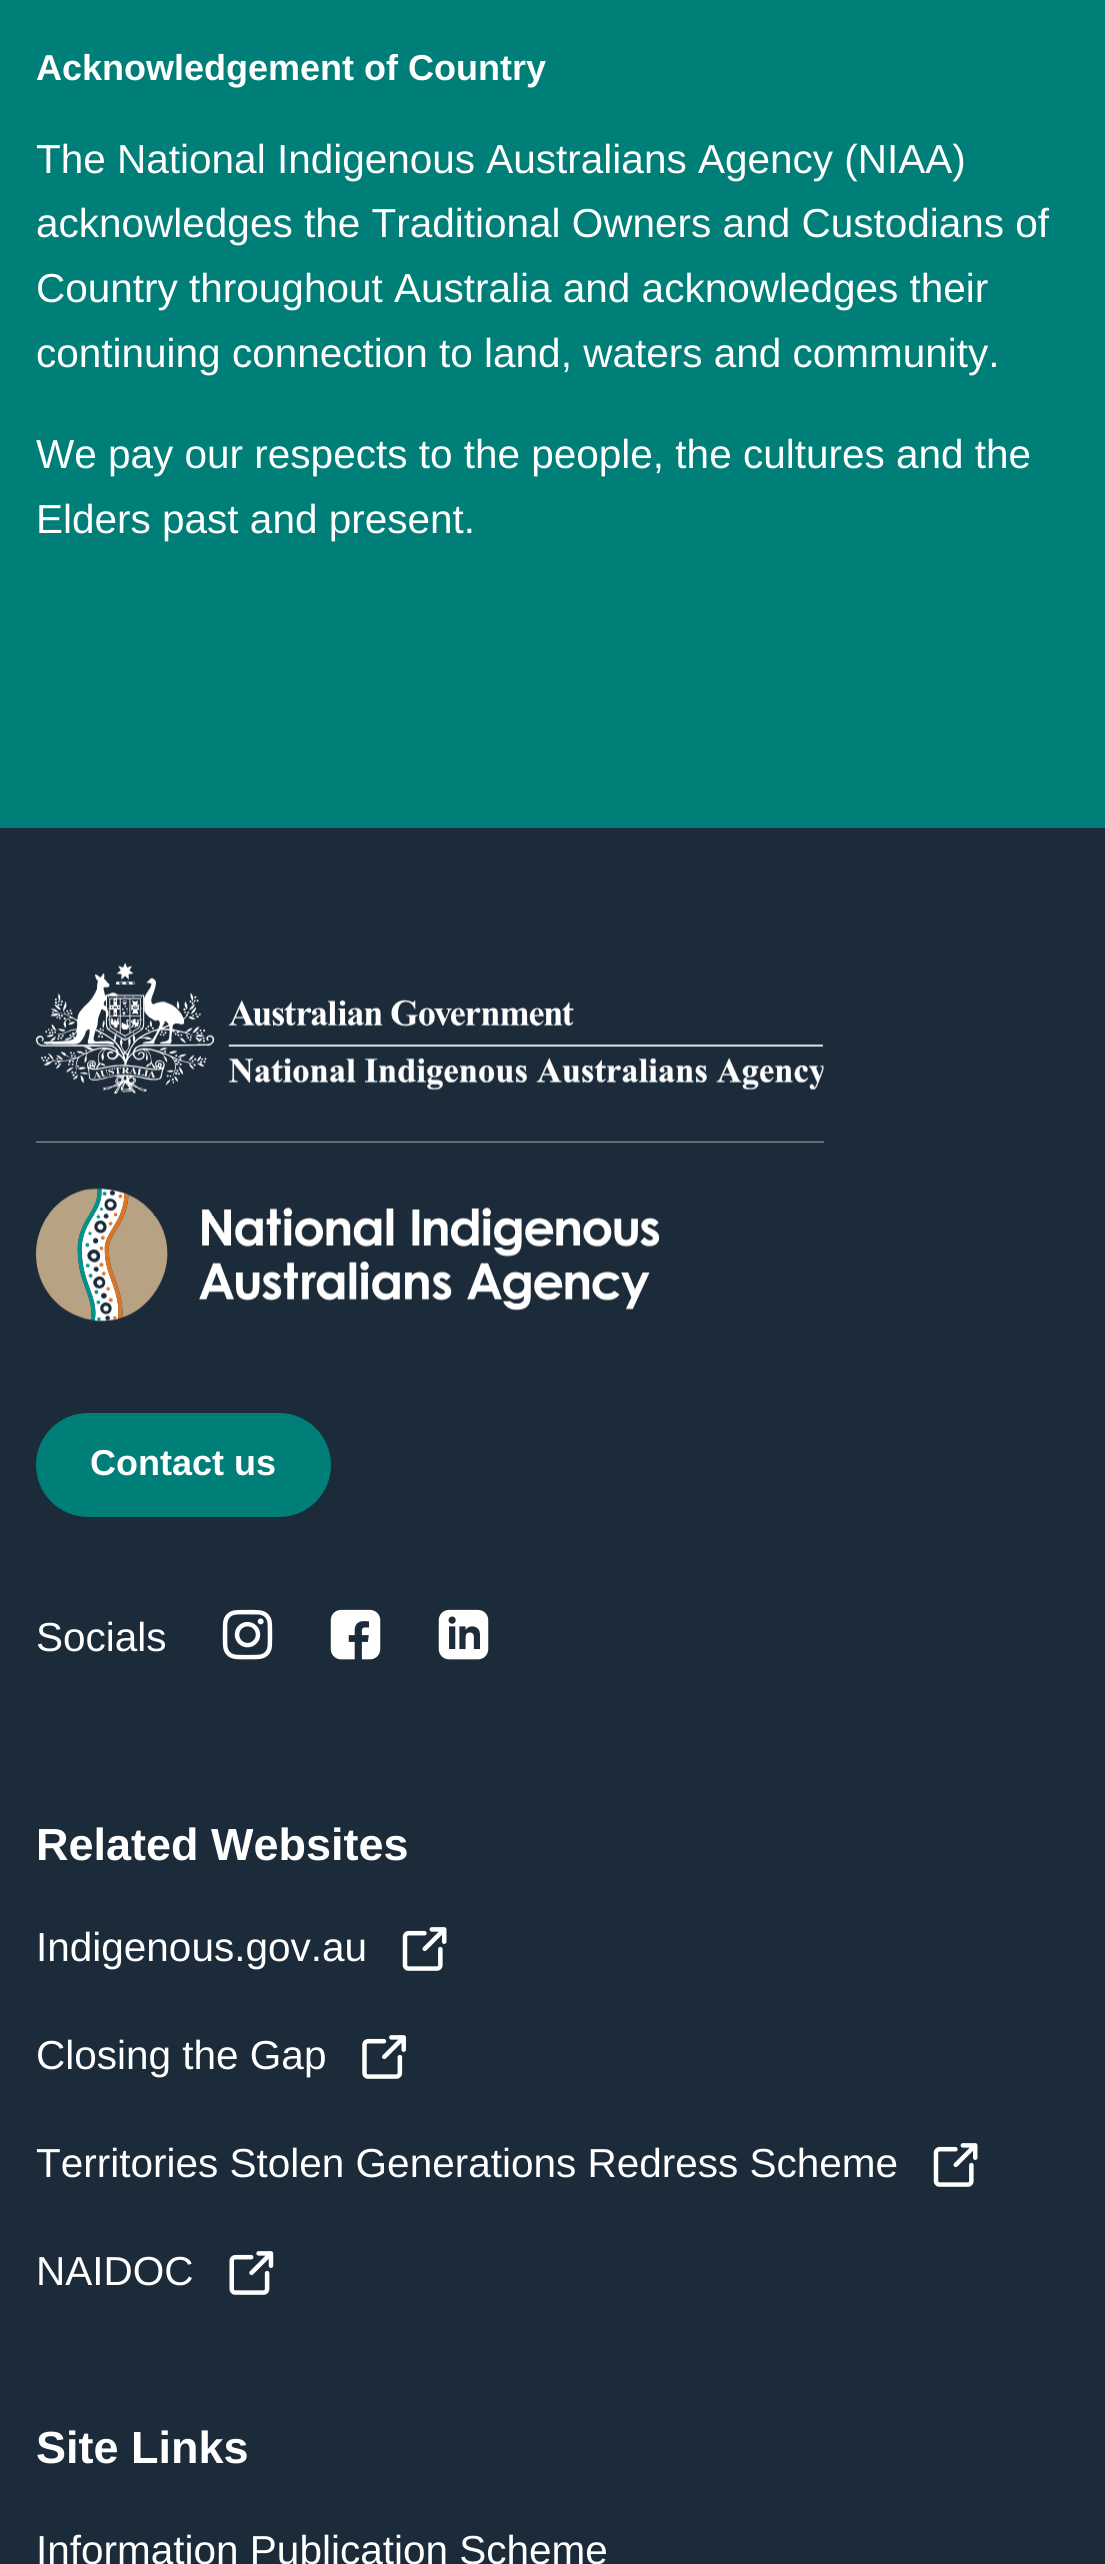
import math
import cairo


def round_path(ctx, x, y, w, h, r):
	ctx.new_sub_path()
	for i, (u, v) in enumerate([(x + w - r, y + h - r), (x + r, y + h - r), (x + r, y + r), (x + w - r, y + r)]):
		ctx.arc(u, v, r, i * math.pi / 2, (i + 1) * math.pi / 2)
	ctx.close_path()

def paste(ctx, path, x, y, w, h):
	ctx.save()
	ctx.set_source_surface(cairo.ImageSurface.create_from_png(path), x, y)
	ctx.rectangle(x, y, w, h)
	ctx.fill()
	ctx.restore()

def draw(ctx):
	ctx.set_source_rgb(0.11, 0.169, 0.224)
	ctx.paint()
	ctx.set_source_rgb(0, 0.494, 0.471)
	ctx.rectangle(0, 0, 1105, 828)
	ctx.fill()
	ctx.select_font_face('Liberation Sans', cairo.FONT_SLANT_NORMAL, cairo.FONT_WEIGHT_BOLD)
	ctx.set_font_size(36)
	ctx.set_source_rgb(1, 1, 1)
	ctx.move_to(36, 80)
	ctx.show_text('Acknowledgement of Country')
	ctx.select_font_face('Liberation Sans')
	ctx.set_font_size(40.5)
	for x, y, s in [
		(36, 173, 'The National Indigenous Australians Agency (NIAA)'),
		(36, 237, 'acknowledges the Traditional Owners and Custodians of'),
		(36, 302, 'Country throughout Australia and acknowledges their'),
		(36, 367, 'continuing connection to land, waters and community.'),
		(36, 468, 'We pay our respects to the people, the cultures and the'),
		(36, 533, 'Elders past and present.'),
	]:
		ctx.move_to(x, y)
		ctx.show_text(s)
	ctx.set_source_rgb(0.376, 0.42, 0.455)
	ctx.rectangle(36, 1141, 788, 2)
	ctx.fill()
	paste(ctx, 'media/1.png', 36, 962, 788, 132)
	paste(ctx, 'media/2.png', 36, 1188, 623, 134)
	ctx.set_source_rgb(0, 0.494, 0.471)
	round_path(ctx, 36, 1413, 295, 104, 52)
	ctx.fill()
	ctx.select_font_face('Liberation Sans', cairo.FONT_SLANT_NORMAL, cairo.FONT_WEIGHT_BOLD)
	ctx.set_font_size(36)
	ctx.set_source_rgb(1, 1, 1)
	ctx.move_to(90, 1475)
	ctx.show_text('Contact us')
	ctx.select_font_face('Liberation Sans')
	ctx.set_font_size(40.5)
	ctx.move_to(36, 1651)
	ctx.show_text('Socials')
	paste(ctx, 'media/3.png', 222, 1609, 51, 51)
	paste(ctx, 'media/4.png', 330, 1609, 51, 51)
	paste(ctx, 'media/5.png', 438, 1609, 51, 51)
	ctx.select_font_face('Liberation Sans', cairo.FONT_SLANT_NORMAL, cairo.FONT_WEIGHT_BOLD)
	ctx.set_font_size(45)
	ctx.move_to(36, 1860)
	ctx.show_text('Related Websites')
	ctx.select_font_face('Liberation Sans')
	ctx.set_font_size(40.5)
	ctx.move_to(36, 1961)
	ctx.show_text('Indigenous.gov.au')
	paste(ctx, 'media/6.png', 402, 1927, 45, 44)
	ctx.move_to(36, 2069)
	ctx.show_text('Closing the Gap')
	paste(ctx, 'media/7.png', 362, 2035, 44, 44)
	ctx.move_to(36, 2177)
	ctx.show_text('Territories Stolen Generations Redress Scheme')
	paste(ctx, 'media/6.png', 933, 2143, 45, 44)
	ctx.move_to(36, 2285)
	ctx.show_text('NAIDOC')
	paste(ctx, 'media/8.png', 229, 2251, 45, 44)
	ctx.select_font_face('Liberation Sans', cairo.FONT_SLANT_NORMAL, cairo.FONT_WEIGHT_BOLD)
	ctx.set_font_size(45)
	ctx.move_to(36, 2463)
	ctx.show_text('Site Links')
	ctx.select_font_face('Liberation Sans')
	ctx.set_font_size(40.5)
	ctx.move_to(36, 2564)
	ctx.show_text('Information Publication Scheme')


surface = cairo.ImageSurface(cairo.FORMAT_RGB24, 1105, 2564)
ctx = cairo.Context(surface)
options = cairo.FontOptions()
options.set_hint_metrics(cairo.HINT_METRICS_OFF)
options.set_hint_style(cairo.HINT_STYLE_NONE)
ctx.set_font_options(options)
ctx.set_miter_limit(4)
draw(ctx)
surface.write_to_png('image.png')
